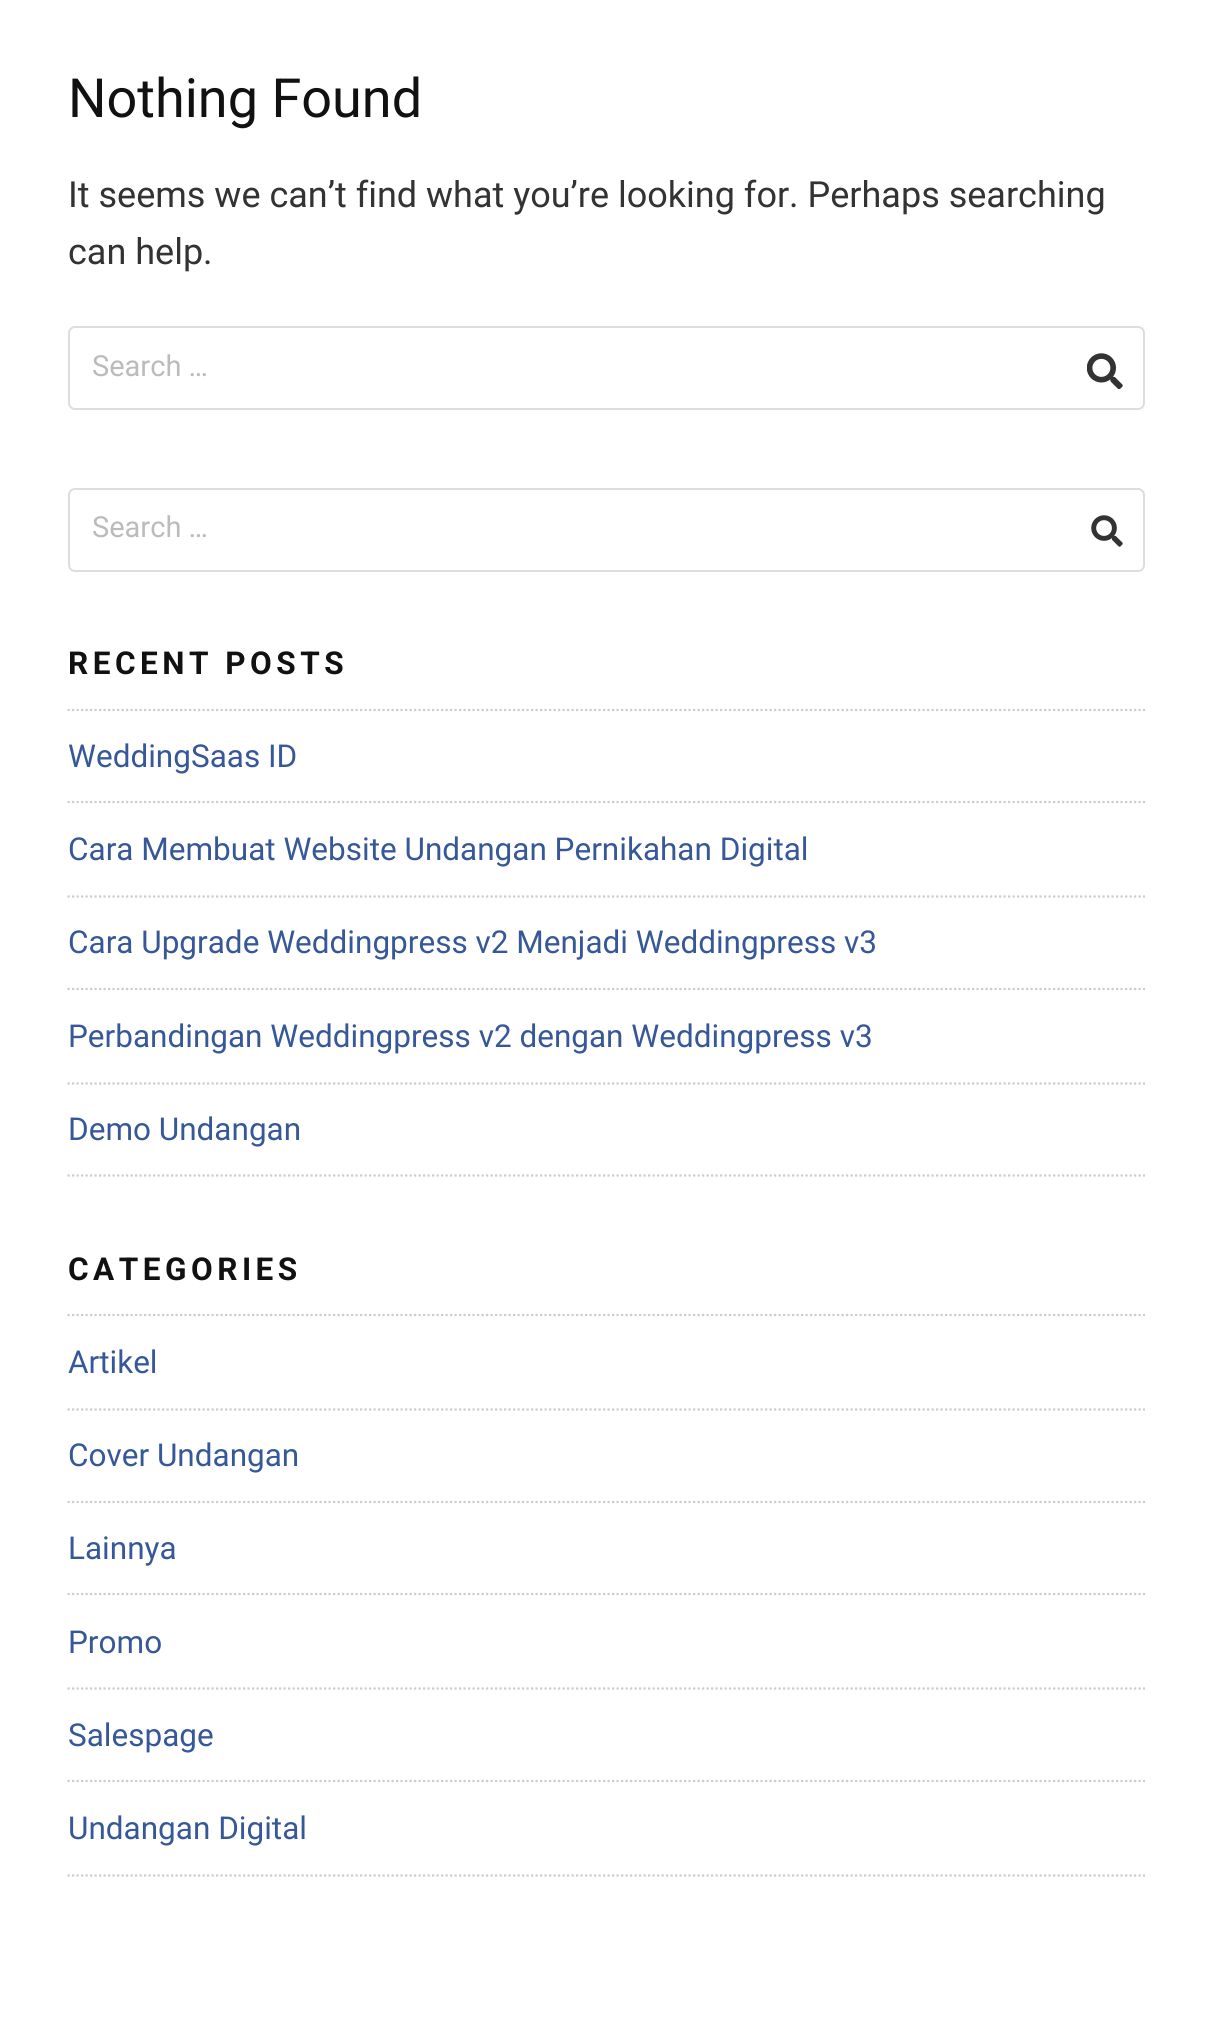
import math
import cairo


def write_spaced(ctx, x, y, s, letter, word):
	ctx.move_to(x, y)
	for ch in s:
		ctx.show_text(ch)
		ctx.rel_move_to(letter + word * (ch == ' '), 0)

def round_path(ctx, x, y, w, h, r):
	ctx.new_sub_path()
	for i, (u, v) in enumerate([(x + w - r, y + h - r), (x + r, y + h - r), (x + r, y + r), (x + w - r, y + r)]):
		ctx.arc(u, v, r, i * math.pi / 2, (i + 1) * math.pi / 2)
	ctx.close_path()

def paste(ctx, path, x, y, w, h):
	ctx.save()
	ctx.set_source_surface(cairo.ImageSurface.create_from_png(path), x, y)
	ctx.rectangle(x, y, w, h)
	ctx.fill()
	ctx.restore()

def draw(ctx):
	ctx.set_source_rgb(1, 1, 1)
	ctx.paint()
	ctx.select_font_face('Roboto')
	ctx.set_font_size(54)
	ctx.set_source_rgb(0.067, 0.067, 0.067)
	ctx.move_to(68, 117)
	ctx.show_text('Nothing Found')
	ctx.set_font_size(36)
	ctx.set_source_rgb(0.2, 0.2, 0.2)
	ctx.move_to(68, 207)
	ctx.show_text('It seems we can’t find what you’re looking for. Perhaps searching')
	ctx.move_to(68, 264)
	ctx.show_text('can help.')
	round_path(ctx, 69, 327, 1075, 82, 6)
	ctx.set_source_rgb(0.867, 0.867, 0.867)
	ctx.stroke()
	ctx.set_font_size(29)
	ctx.set_source_rgb(0.733, 0.733, 0.733)
	ctx.move_to(92, 376)
	ctx.show_text('Search …')
	paste(ctx, 'media/1.png', 1087, 353, 36, 36)
	round_path(ctx, 69, 489, 1075, 82, 6)
	ctx.set_source_rgb(0.867, 0.867, 0.867)
	ctx.stroke()
	ctx.set_source_rgb(0.733, 0.733, 0.733)
	ctx.move_to(92, 537)
	ctx.show_text('Search …')
	paste(ctx, 'media/2.png', 1091, 515, 32, 32)
	ctx.new_path()
	ctx.move_to(67.5, 710)
	ctx.line_to(1145, 710)
	ctx.set_source_rgb(0.8, 0.8, 0.8)
	ctx.set_line_width(2.2)
	ctx.set_dash([2.25, 2.25])
	ctx.stroke()
	ctx.select_font_face('Roboto', cairo.FONT_SLANT_NORMAL, cairo.FONT_WEIGHT_BOLD)
	ctx.set_font_size(31.5)
	ctx.set_source_rgb(0.067, 0.067, 0.067)
	write_spaced(ctx, 68, 674, 'RECENT POSTS', 4.5, 0)
	ctx.new_path()
	ctx.move_to(67.5, 802)
	ctx.line_to(1145, 802)
	ctx.set_source_rgb(0.8, 0.8, 0.8)
	ctx.stroke()
	ctx.select_font_face('Roboto')
	ctx.set_source_rgb(0.212, 0.345, 0.6)
	ctx.move_to(68, 767)
	ctx.show_text('WeddingSaas ID')
	ctx.new_path()
	ctx.move_to(67.5, 896.5)
	ctx.line_to(1145, 896.5)
	ctx.set_source_rgb(0.8, 0.8, 0.8)
	ctx.stroke()
	ctx.set_source_rgb(0.212, 0.345, 0.6)
	ctx.move_to(68, 860)
	ctx.show_text('Cara Membuat Website Undangan Pernikahan Digital')
	ctx.new_path()
	ctx.move_to(67.5, 989)
	ctx.line_to(1145, 989)
	ctx.set_source_rgb(0.8, 0.8, 0.8)
	ctx.stroke()
	ctx.set_source_rgb(0.212, 0.345, 0.6)
	ctx.move_to(68, 953)
	ctx.show_text('Cara Upgrade Weddingpress v2 Menjadi Weddingpress v3')
	ctx.new_path()
	ctx.move_to(67.5, 1083.5)
	ctx.line_to(1145, 1083.5)
	ctx.set_source_rgb(0.8, 0.8, 0.8)
	ctx.stroke()
	ctx.set_source_rgb(0.212, 0.345, 0.6)
	ctx.move_to(68, 1047)
	ctx.show_text('Perbandingan Weddingpress v2 dengan Weddingpress v3')
	ctx.new_path()
	ctx.move_to(67.5, 1175.5)
	ctx.line_to(1145, 1175.5)
	ctx.set_source_rgb(0.8, 0.8, 0.8)
	ctx.stroke()
	ctx.set_source_rgb(0.212, 0.345, 0.6)
	ctx.move_to(68, 1140)
	ctx.show_text('Demo Undangan')
	ctx.new_path()
	ctx.move_to(67.5, 1315)
	ctx.line_to(1145, 1315)
	ctx.set_source_rgb(0.8, 0.8, 0.8)
	ctx.stroke()
	ctx.select_font_face('Roboto', cairo.FONT_SLANT_NORMAL, cairo.FONT_WEIGHT_BOLD)
	ctx.set_source_rgb(0.067, 0.067, 0.067)
	write_spaced(ctx, 68, 1280, 'CATEGORIES', 4.5, 0)
	ctx.new_path()
	ctx.move_to(67.5, 1409.5)
	ctx.line_to(1145, 1409.5)
	ctx.set_source_rgb(0.8, 0.8, 0.8)
	ctx.stroke()
	ctx.select_font_face('Roboto')
	ctx.set_source_rgb(0.212, 0.345, 0.6)
	ctx.move_to(68, 1373)
	ctx.show_text('Artikel')
	ctx.new_path()
	ctx.move_to(67.5, 1502)
	ctx.line_to(1145, 1502)
	ctx.set_source_rgb(0.8, 0.8, 0.8)
	ctx.stroke()
	ctx.set_source_rgb(0.212, 0.345, 0.6)
	ctx.move_to(68, 1466)
	ctx.show_text('Cover Undangan')
	ctx.new_path()
	ctx.move_to(67.5, 1594)
	ctx.line_to(1145, 1594)
	ctx.set_source_rgb(0.8, 0.8, 0.8)
	ctx.stroke()
	ctx.set_source_rgb(0.212, 0.345, 0.6)
	ctx.move_to(68, 1559)
	ctx.show_text('Lainnya')
	ctx.new_path()
	ctx.move_to(67.5, 1688.5)
	ctx.line_to(1145, 1688.5)
	ctx.set_source_rgb(0.8, 0.8, 0.8)
	ctx.stroke()
	ctx.set_source_rgb(0.212, 0.345, 0.6)
	ctx.move_to(68, 1653)
	ctx.show_text('Promo')
	ctx.new_path()
	ctx.move_to(67.5, 1781)
	ctx.line_to(1145, 1781)
	ctx.set_source_rgb(0.8, 0.8, 0.8)
	ctx.stroke()
	ctx.set_source_rgb(0.212, 0.345, 0.6)
	ctx.move_to(68, 1746)
	ctx.show_text('Salespage')
	ctx.new_path()
	ctx.move_to(67.5, 1875.5)
	ctx.line_to(1145, 1875.5)
	ctx.set_source_rgb(0.8, 0.8, 0.8)
	ctx.stroke()
	ctx.set_source_rgb(0.212, 0.345, 0.6)
	ctx.move_to(68, 1839)
	ctx.show_text('Undangan Digital')


surface = cairo.ImageSurface(cairo.FORMAT_RGB24, 1211, 2029)
ctx = cairo.Context(surface)
options = cairo.FontOptions()
options.set_hint_metrics(cairo.HINT_METRICS_OFF)
options.set_hint_style(cairo.HINT_STYLE_NONE)
ctx.set_font_options(options)
ctx.set_miter_limit(4)
draw(ctx)
surface.write_to_png('image.png')
